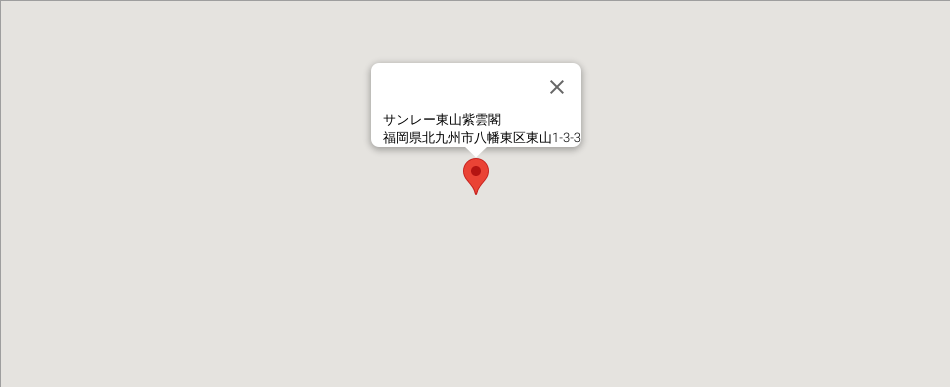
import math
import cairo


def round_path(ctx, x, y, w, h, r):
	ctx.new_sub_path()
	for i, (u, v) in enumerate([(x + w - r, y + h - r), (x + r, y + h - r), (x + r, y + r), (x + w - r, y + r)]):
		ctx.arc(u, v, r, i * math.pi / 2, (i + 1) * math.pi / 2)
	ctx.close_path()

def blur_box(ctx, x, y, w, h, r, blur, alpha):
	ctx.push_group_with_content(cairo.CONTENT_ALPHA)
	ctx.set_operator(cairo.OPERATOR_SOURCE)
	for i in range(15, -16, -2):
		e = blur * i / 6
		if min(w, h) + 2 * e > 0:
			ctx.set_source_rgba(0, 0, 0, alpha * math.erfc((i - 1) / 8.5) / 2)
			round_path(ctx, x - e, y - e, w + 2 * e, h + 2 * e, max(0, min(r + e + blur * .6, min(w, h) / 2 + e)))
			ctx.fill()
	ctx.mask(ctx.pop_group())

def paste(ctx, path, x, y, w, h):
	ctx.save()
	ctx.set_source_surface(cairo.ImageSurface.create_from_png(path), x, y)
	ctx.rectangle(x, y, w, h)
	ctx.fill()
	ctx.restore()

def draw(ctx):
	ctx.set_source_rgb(1, 1, 1)
	ctx.paint()
	ctx.rectangle(0.5, 0.5, 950, 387)
	ctx.set_source_rgb(0.62, 0.62, 0.62)
	ctx.set_line_width(1)
	ctx.stroke()
	ctx.set_source_rgb(0.898, 0.89, 0.875)
	ctx.rectangle(1, 1, 949, 386)
	ctx.fill()
	paste(ctx, 'media/2.png', 463, 158, 26, 37)
	ctx.set_source_rgb(0, 0, 0)
	blur_box(ctx, 370, 64, 212, 86, 9, 3.5, 0.3)
	ctx.set_source_rgb(1, 1, 1)
	round_path(ctx, 371, 63, 210, 84, 8)
	ctx.fill()
	paste(ctx, 'media/1.png', 550, 80, 14, 14)
	ctx.select_font_face('WenQuanYi Zen Hei Medium')
	ctx.set_font_size(13)
	ctx.set_source_rgb(0, 0, 0)
	ctx.move_to(383, 124)
	ctx.show_text('サンレー東山紫雲閣')
	ctx.move_to(383, 142)
	ctx.show_text('福岡県北九州市八幡東区東山')
	ctx.select_font_face('Roboto Light')
	ctx.move_to(552, 142)
	ctx.show_text('1-3-3')
	ctx.set_source_rgb(1, 1, 1)
	ctx.new_path()
	ctx.move_to(488, 146)
	ctx.line_to(464, 146)
	ctx.line_to(476, 157.5)
	ctx.close_path()
	ctx.fill()


surface = cairo.ImageSurface(cairo.FORMAT_RGB24, 950, 387)
ctx = cairo.Context(surface)
options = cairo.FontOptions()
options.set_hint_metrics(cairo.HINT_METRICS_OFF)
options.set_hint_style(cairo.HINT_STYLE_NONE)
ctx.set_font_options(options)
ctx.set_miter_limit(4)
draw(ctx)
surface.write_to_png('image.png')
